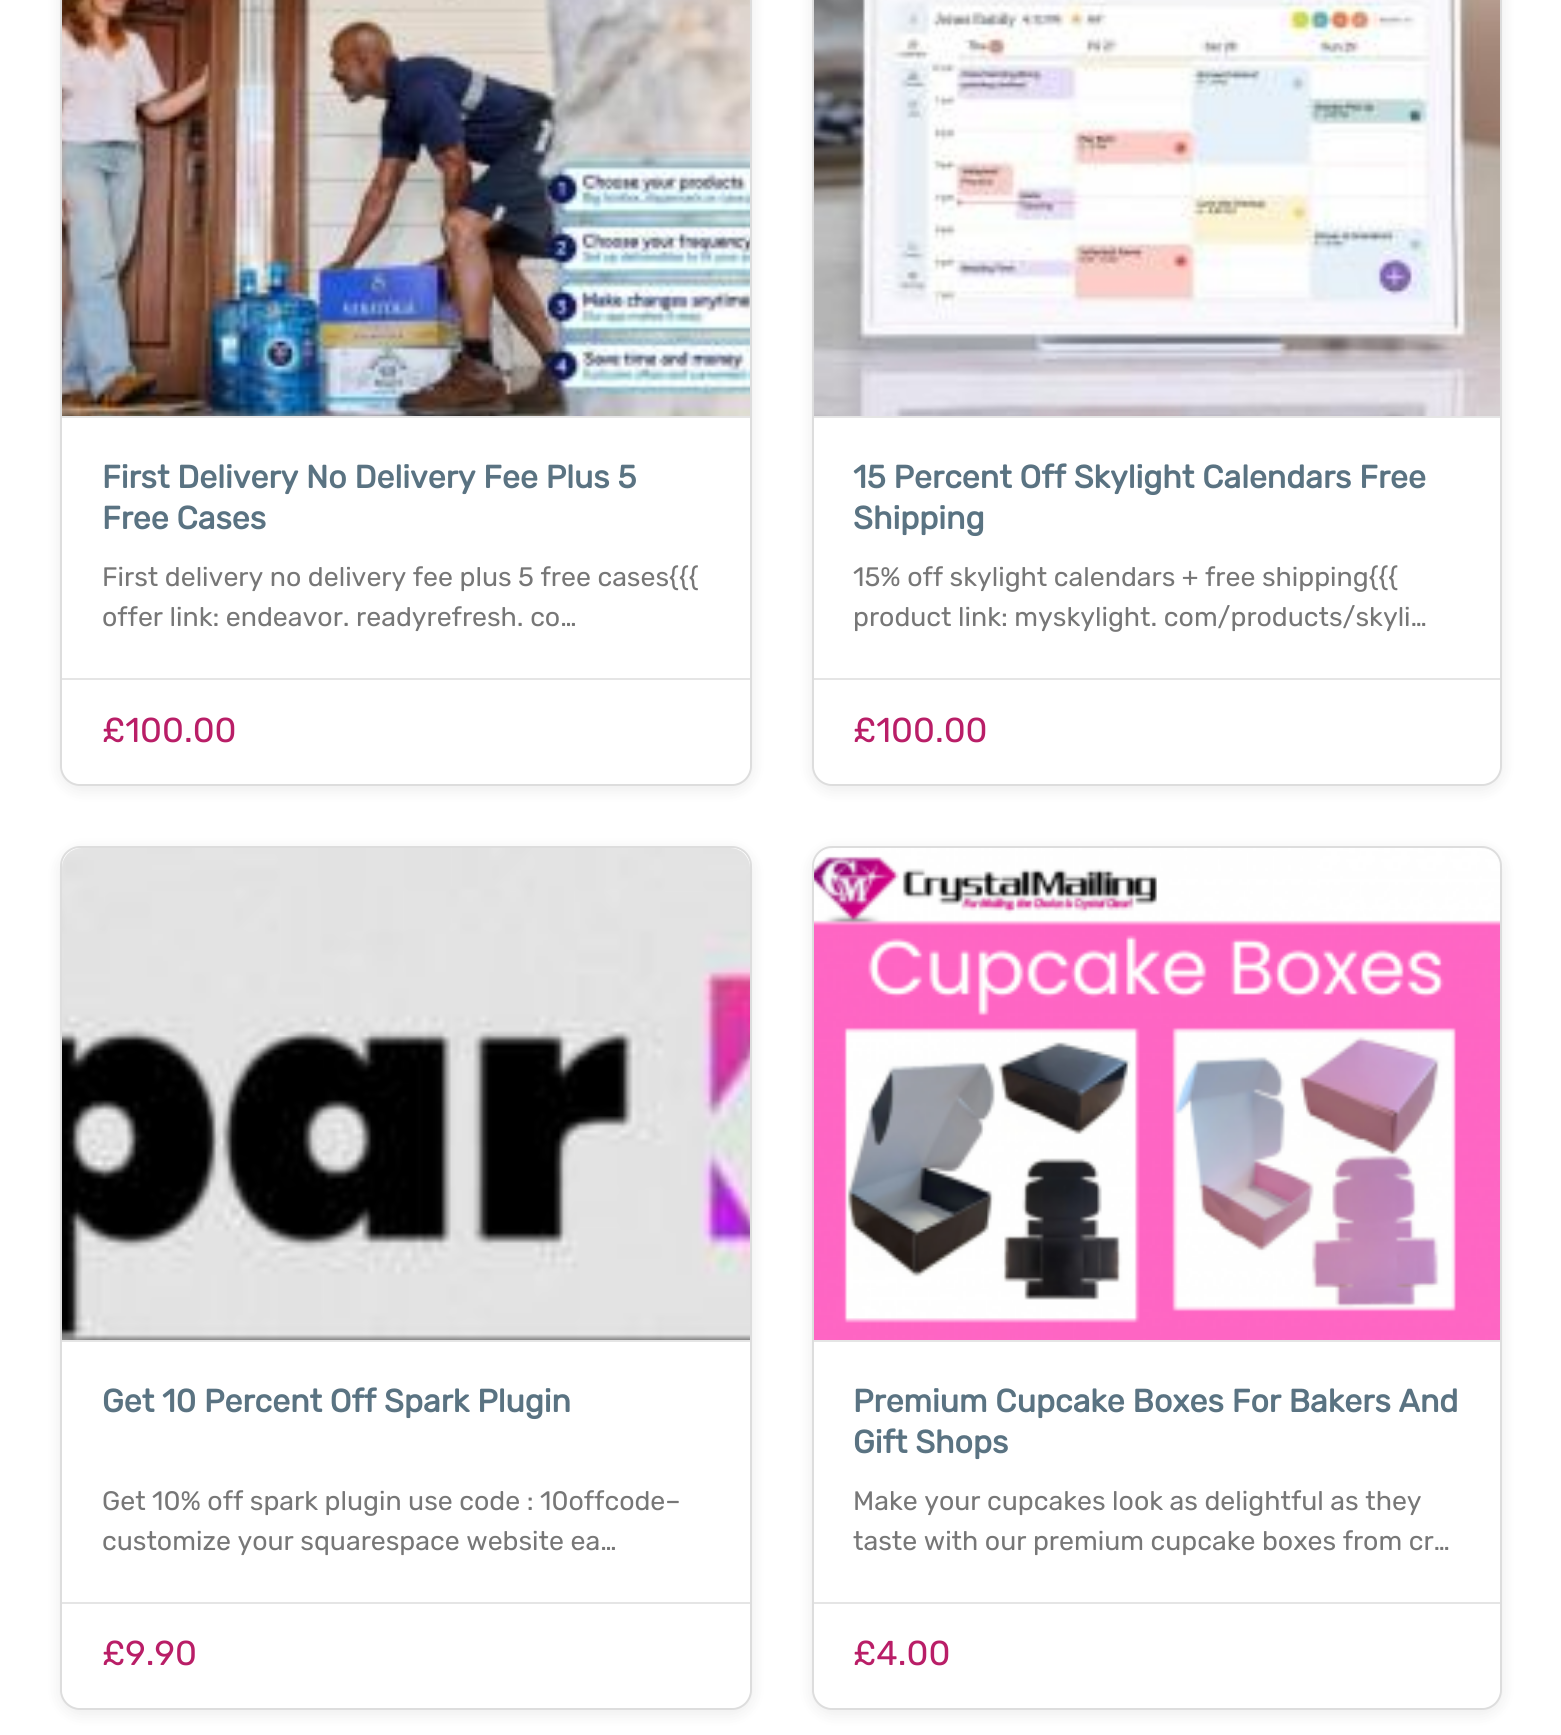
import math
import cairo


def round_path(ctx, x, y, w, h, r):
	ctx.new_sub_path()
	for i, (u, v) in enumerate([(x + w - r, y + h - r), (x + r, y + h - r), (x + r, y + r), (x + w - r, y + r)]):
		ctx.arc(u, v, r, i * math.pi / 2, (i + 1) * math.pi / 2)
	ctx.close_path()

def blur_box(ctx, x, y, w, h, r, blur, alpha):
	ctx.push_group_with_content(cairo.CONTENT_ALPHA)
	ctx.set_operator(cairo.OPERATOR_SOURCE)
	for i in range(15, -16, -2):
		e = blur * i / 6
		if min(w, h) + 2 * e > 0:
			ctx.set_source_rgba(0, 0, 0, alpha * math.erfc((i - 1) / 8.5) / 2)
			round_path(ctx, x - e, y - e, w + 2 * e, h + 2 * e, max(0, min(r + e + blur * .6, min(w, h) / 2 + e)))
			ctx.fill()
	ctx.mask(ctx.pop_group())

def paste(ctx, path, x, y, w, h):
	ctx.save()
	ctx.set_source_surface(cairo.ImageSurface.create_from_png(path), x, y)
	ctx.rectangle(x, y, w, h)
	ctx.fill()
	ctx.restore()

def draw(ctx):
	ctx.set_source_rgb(1, 1, 1)
	ctx.paint()
	ctx.set_source_rgb(0, 0, 0)
	blur_box(ctx, 60, -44, 692, 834, 20, 8, 0.08)
	ctx.set_source_rgb(1, 1, 1)
	round_path(ctx, 61, -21, 690, 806, 19)
	ctx.fill_preserve()
	ctx.set_source_rgb(0.867, 0.867, 0.867)
	ctx.stroke()
	ctx.set_source_rgb(0.898, 0.898, 0.898)
	ctx.rectangle(62, 416, 688, 2)
	ctx.fill()
	paste(ctx, 'media/1.png', 62, 0, 688, 416)
	ctx.select_font_face('Rubik', cairo.FONT_SLANT_NORMAL, cairo.FONT_WEIGHT_BOLD)
	ctx.set_font_size(32)
	ctx.set_source_rgb(0.353, 0.451, 0.51)
	ctx.move_to(102, 488)
	ctx.show_text('First Delivery No Delivery Fee Plus 5')
	ctx.move_to(102, 529)
	ctx.show_text('Free Cases')
	ctx.select_font_face('Rubik Light')
	ctx.set_font_size(26.7)
	ctx.set_source_rgb(0.467, 0.467, 0.467)
	ctx.move_to(102, 586)
	ctx.show_text('First delivery no delivery fee plus 5 free cases{{{')
	ctx.move_to(102, 626)
	ctx.show_text('offer link: endeavor. readyrefresh. co…')
	ctx.set_source_rgb(1, 1, 1)
	ctx.new_path()
	ctx.move_to(62, 678)
	ctx.line_to(750, 678)
	ctx.line_to(750, 764)
	ctx.curve_to(750, 775, 741, 784, 730, 784)
	ctx.line_to(82, 784)
	ctx.curve_to(71, 784, 62, 775, 62, 764)
	ctx.close_path()
	ctx.fill()
	ctx.set_source_rgb(0.898, 0.898, 0.898)
	ctx.rectangle(62, 678, 688, 2)
	ctx.fill()
	ctx.set_font_size(34.5)
	ctx.set_source_rgb(0.725, 0.118, 0.404)
	ctx.move_to(102, 742)
	ctx.show_text('£100.00')
	ctx.set_source_rgb(0, 0, 0)
	blur_box(ctx, 812, -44, 690, 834, 20, 8, 0.08)
	ctx.set_source_rgb(1, 1, 1)
	round_path(ctx, 813, -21, 688, 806, 19)
	ctx.fill_preserve()
	ctx.set_source_rgb(0.867, 0.867, 0.867)
	ctx.stroke()
	ctx.set_source_rgb(0.898, 0.898, 0.898)
	ctx.rectangle(814, 416, 686, 2)
	ctx.fill()
	paste(ctx, 'media/2.png', 814, 0, 686, 416)
	ctx.select_font_face('Rubik', cairo.FONT_SLANT_NORMAL, cairo.FONT_WEIGHT_BOLD)
	ctx.set_font_size(32)
	ctx.set_source_rgb(0.353, 0.451, 0.51)
	ctx.move_to(853, 488)
	ctx.show_text('15 Percent Off Skylight Calendars Free')
	ctx.move_to(853, 529)
	ctx.show_text('Shipping')
	ctx.select_font_face('Rubik Light')
	ctx.set_font_size(26.7)
	ctx.set_source_rgb(0.467, 0.467, 0.467)
	ctx.move_to(853, 586)
	ctx.show_text('15% off skylight calendars + free shipping{{{')
	ctx.move_to(853, 626)
	ctx.show_text('product link: myskylight. com/products/skyli…')
	ctx.set_source_rgb(1, 1, 1)
	ctx.new_path()
	ctx.move_to(814, 678)
	ctx.line_to(1500, 678)
	ctx.line_to(1500, 764)
	ctx.curve_to(1500, 775, 1491, 784, 1480, 784)
	ctx.line_to(834, 784)
	ctx.curve_to(823, 784, 814, 775, 814, 764)
	ctx.close_path()
	ctx.fill()
	ctx.set_source_rgb(0.898, 0.898, 0.898)
	ctx.rectangle(814, 678, 686, 2)
	ctx.fill()
	ctx.set_font_size(34.5)
	ctx.set_source_rgb(0.725, 0.118, 0.404)
	ctx.move_to(853, 742)
	ctx.show_text('£100.00')
	ctx.set_source_rgb(0, 0, 0)
	blur_box(ctx, 60, 850, 692, 864, 20, 8, 0.08)
	ctx.set_source_rgb(1, 1, 1)
	round_path(ctx, 61, 847, 690, 862, 19)
	ctx.fill_preserve()
	ctx.set_source_rgb(0.867, 0.867, 0.867)
	ctx.stroke()
	ctx.set_source_rgba(0.753, 0.753, 0.753, 0.2)
	ctx.new_path()
	ctx.move_to(82, 848)
	ctx.line_to(730, 848)
	ctx.curve_to(741, 848, 750, 857, 750, 868)
	ctx.line_to(750, 1342)
	ctx.line_to(62, 1342)
	ctx.line_to(62, 868)
	ctx.curve_to(62, 857, 71, 848, 82, 848)
	ctx.close_path()
	ctx.fill()
	ctx.set_source_rgb(0.898, 0.898, 0.898)
	ctx.rectangle(62, 1340, 688, 2)
	ctx.fill()
	paste(ctx, 'media/3.png', 62, 848, 688, 492)
	ctx.select_font_face('Rubik', cairo.FONT_SLANT_NORMAL, cairo.FONT_WEIGHT_BOLD)
	ctx.set_font_size(32)
	ctx.set_source_rgb(0.353, 0.451, 0.51)
	ctx.move_to(102, 1412)
	ctx.show_text('Get 10 Percent Off Spark Plugin')
	ctx.select_font_face('Rubik Light')
	ctx.set_font_size(26.7)
	ctx.set_source_rgb(0.467, 0.467, 0.467)
	ctx.move_to(102, 1510)
	ctx.show_text('Get 10% off spark plugin use code : 10offcode–')
	ctx.move_to(102, 1550)
	ctx.show_text('customize your squarespace website ea…')
	ctx.set_source_rgb(1, 1, 1)
	ctx.new_path()
	ctx.move_to(62, 1602)
	ctx.line_to(750, 1602)
	ctx.line_to(750, 1688)
	ctx.curve_to(750, 1699, 741, 1708, 730, 1708)
	ctx.line_to(82, 1708)
	ctx.curve_to(71, 1708, 62, 1699, 62, 1688)
	ctx.close_path()
	ctx.fill()
	ctx.set_source_rgb(0.898, 0.898, 0.898)
	ctx.rectangle(62, 1602, 688, 2)
	ctx.fill()
	ctx.set_font_size(34.5)
	ctx.set_source_rgb(0.725, 0.118, 0.404)
	ctx.move_to(102, 1665)
	ctx.show_text('£9.90')
	ctx.set_source_rgb(0, 0, 0)
	blur_box(ctx, 812, 850, 690, 864, 20, 8, 0.08)
	ctx.set_source_rgb(1, 1, 1)
	round_path(ctx, 813, 847, 688, 862, 19)
	ctx.fill_preserve()
	ctx.set_source_rgb(0.867, 0.867, 0.867)
	ctx.stroke()
	ctx.set_source_rgba(0.753, 0.753, 0.753, 0.2)
	ctx.new_path()
	ctx.move_to(834, 848)
	ctx.line_to(1480, 848)
	ctx.curve_to(1491, 848, 1500, 857, 1500, 868)
	ctx.line_to(1500, 1342)
	ctx.line_to(814, 1342)
	ctx.line_to(814, 868)
	ctx.curve_to(814, 857, 823, 848, 834, 848)
	ctx.close_path()
	ctx.fill()
	ctx.set_source_rgb(0.898, 0.898, 0.898)
	ctx.rectangle(814, 1340, 686, 2)
	ctx.fill()
	paste(ctx, 'media/4.png', 814, 848, 686, 492)
	ctx.select_font_face('Rubik', cairo.FONT_SLANT_NORMAL, cairo.FONT_WEIGHT_BOLD)
	ctx.set_font_size(32)
	ctx.set_source_rgb(0.353, 0.451, 0.51)
	ctx.move_to(853, 1412)
	ctx.show_text('Premium Cupcake Boxes For Bakers And')
	ctx.move_to(853, 1453)
	ctx.show_text('Gift Shops')
	ctx.select_font_face('Rubik Light')
	ctx.set_font_size(26.7)
	ctx.set_source_rgb(0.467, 0.467, 0.467)
	ctx.move_to(853, 1510)
	ctx.show_text('Make your cupcakes look as delightful as they')
	ctx.move_to(853, 1550)
	ctx.show_text('taste with our premium cupcake boxes from cr…')
	ctx.set_source_rgb(1, 1, 1)
	ctx.new_path()
	ctx.move_to(814, 1602)
	ctx.line_to(1500, 1602)
	ctx.line_to(1500, 1688)
	ctx.curve_to(1500, 1699, 1491, 1708, 1480, 1708)
	ctx.line_to(834, 1708)
	ctx.curve_to(823, 1708, 814, 1699, 814, 1688)
	ctx.close_path()
	ctx.fill()
	ctx.set_source_rgb(0.898, 0.898, 0.898)
	ctx.rectangle(814, 1602, 686, 2)
	ctx.fill()
	ctx.set_font_size(34.5)
	ctx.set_source_rgb(0.725, 0.118, 0.404)
	ctx.move_to(853, 1665)
	ctx.show_text('£4.00')


surface = cairo.ImageSurface(cairo.FORMAT_RGB24, 1561, 1735)
ctx = cairo.Context(surface)
options = cairo.FontOptions()
options.set_hint_metrics(cairo.HINT_METRICS_OFF)
options.set_hint_style(cairo.HINT_STYLE_NONE)
ctx.set_font_options(options)
ctx.set_miter_limit(4)
draw(ctx)
surface.write_to_png('image.png')
